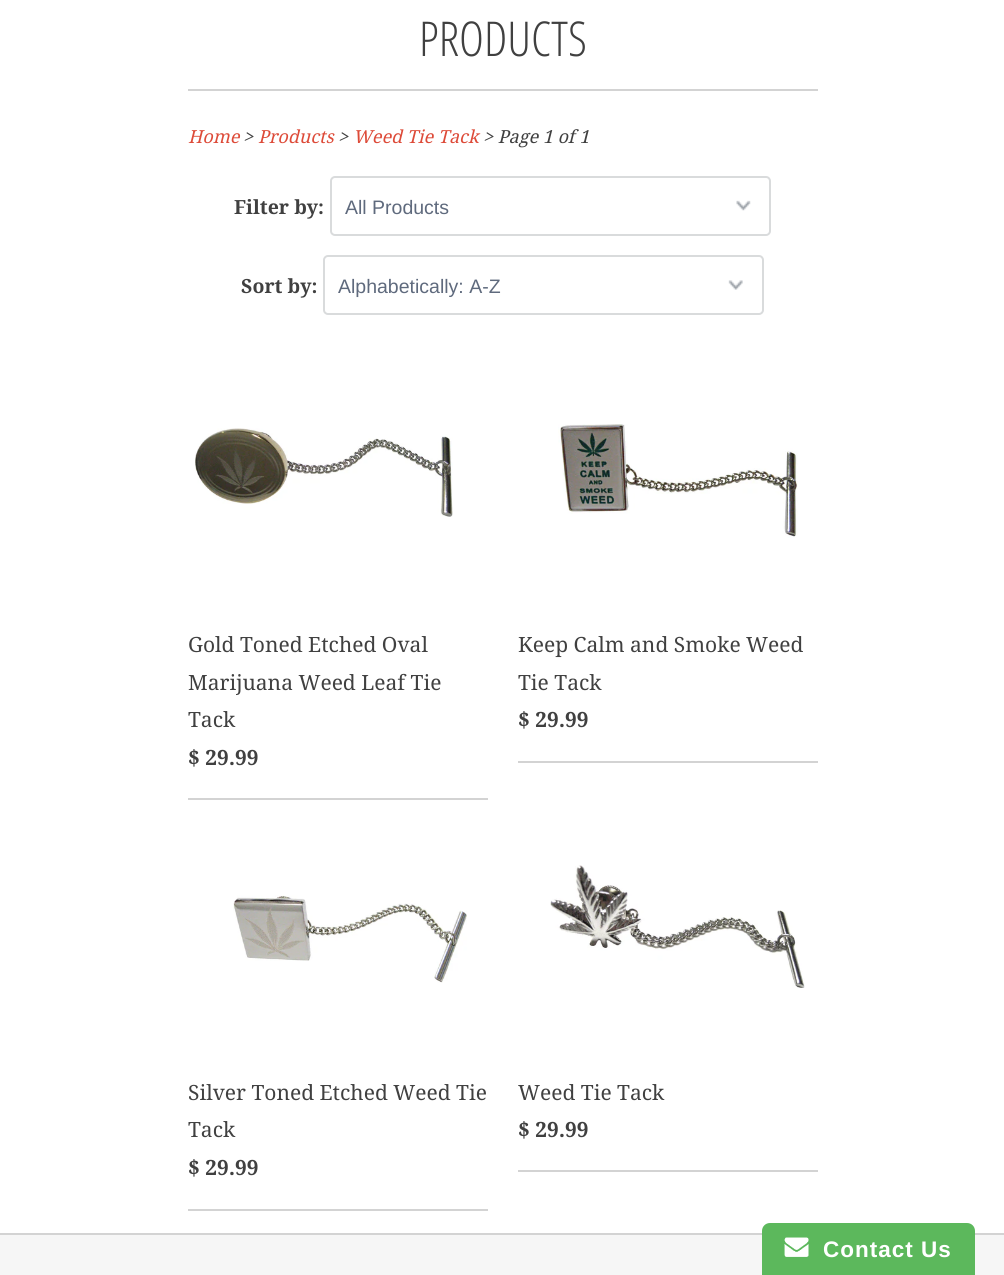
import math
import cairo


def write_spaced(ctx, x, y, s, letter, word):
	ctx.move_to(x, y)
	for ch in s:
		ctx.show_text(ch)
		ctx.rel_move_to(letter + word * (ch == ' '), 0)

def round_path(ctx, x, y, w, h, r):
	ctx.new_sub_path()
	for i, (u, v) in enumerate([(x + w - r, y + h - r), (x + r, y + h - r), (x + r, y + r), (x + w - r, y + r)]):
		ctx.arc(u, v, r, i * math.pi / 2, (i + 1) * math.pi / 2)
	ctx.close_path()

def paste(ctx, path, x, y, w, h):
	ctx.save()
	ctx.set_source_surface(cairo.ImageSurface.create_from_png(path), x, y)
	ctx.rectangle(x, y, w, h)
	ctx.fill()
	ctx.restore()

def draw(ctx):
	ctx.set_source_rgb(1, 1, 1)
	ctx.paint()
	ctx.set_source_rgb(0.827, 0.827, 0.827)
	ctx.rectangle(188, 89, 630, 2)
	ctx.fill()
	ctx.select_font_face('Open Sans Condensed Light')
	ctx.set_font_size(48)
	ctx.set_source_rgb(0.251, 0.251, 0.251)
	ctx.move_to(419, 56)
	ctx.show_text('PRODUCTS')
	ctx.select_font_face('Droid Serif', cairo.FONT_SLANT_ITALIC)
	ctx.set_font_size(18)
	ctx.set_source_rgb(0.867, 0.294, 0.224)
	ctx.move_to(188, 143)
	ctx.show_text('Home')
	ctx.set_source_rgb(0.251, 0.251, 0.251)
	ctx.move_to(243, 143)
	ctx.show_text('>')
	ctx.set_source_rgb(0.867, 0.294, 0.224)
	ctx.move_to(258, 143)
	ctx.show_text('Products')
	ctx.set_source_rgb(0.251, 0.251, 0.251)
	ctx.move_to(338, 143)
	ctx.show_text('>')
	ctx.set_source_rgb(0.867, 0.294, 0.224)
	ctx.move_to(353, 143)
	ctx.show_text('Weed Tie Tack')
	ctx.set_source_rgb(0.251, 0.251, 0.251)
	ctx.move_to(483, 143)
	ctx.show_text('> Page 1 of 1')
	ctx.select_font_face('Droid Serif', cairo.FONT_SLANT_NORMAL, cairo.FONT_WEIGHT_BOLD)
	ctx.set_font_size(19.5)
	ctx.move_to(234, 214)
	ctx.show_text('Filter by:')
	paste(ctx, 'media/1.png', 736, 200, 15, 11)
	round_path(ctx, 331, 177, 439, 58, 4)
	ctx.set_source_rgb(0.851, 0.859, 0.863)
	ctx.stroke()
	ctx.select_font_face('Liberation Sans')
	ctx.set_source_rgb(0.373, 0.416, 0.49)
	ctx.move_to(345, 214)
	ctx.show_text('All Products')
	ctx.select_font_face('Droid Serif', cairo.FONT_SLANT_NORMAL, cairo.FONT_WEIGHT_BOLD)
	ctx.set_source_rgb(0.251, 0.251, 0.251)
	ctx.move_to(241, 293)
	ctx.show_text('Sort by:')
	paste(ctx, 'media/2.png', 728, 280, 15, 10)
	round_path(ctx, 324, 256, 439, 58, 4)
	ctx.set_source_rgb(0.851, 0.859, 0.863)
	ctx.stroke()
	ctx.select_font_face('Liberation Sans')
	ctx.set_source_rgb(0.373, 0.416, 0.49)
	ctx.move_to(338, 293)
	ctx.show_text('Alphabetically: A-Z')
	ctx.set_source_rgb(0.827, 0.827, 0.827)
	ctx.rectangle(188, 798, 300, 2)
	ctx.fill()
	paste(ctx, 'media/3.png', 195, 428, 258, 89)
	ctx.select_font_face('Droid Serif')
	ctx.set_font_size(21)
	ctx.set_source_rgb(0.251, 0.251, 0.251)
	for x, y, s in [
		(188, 652, 'Gold Toned Etched Oval'),
		(188, 690, 'Marijuana Weed Leaf Tie'),
		(188, 727, 'Tack'),
	]:
		ctx.move_to(x, y)
		ctx.show_text(s)
	ctx.select_font_face('Droid Serif', cairo.FONT_SLANT_NORMAL, cairo.FONT_WEIGHT_BOLD)
	ctx.move_to(188, 765)
	ctx.show_text('$ 29.99')
	ctx.set_source_rgb(0.827, 0.827, 0.827)
	ctx.rectangle(518, 761, 300, 2)
	ctx.fill()
	paste(ctx, 'media/4.png', 558, 424, 240, 114)
	ctx.select_font_face('Droid Serif')
	ctx.set_source_rgb(0.251, 0.251, 0.251)
	ctx.move_to(518, 652)
	ctx.show_text('Keep Calm and Smoke Weed')
	ctx.move_to(518, 690)
	ctx.show_text('Tie Tack')
	ctx.select_font_face('Droid Serif', cairo.FONT_SLANT_NORMAL, cairo.FONT_WEIGHT_BOLD)
	ctx.move_to(518, 727)
	ctx.show_text('$ 29.99')
	ctx.set_source_rgb(0.827, 0.827, 0.827)
	ctx.rectangle(188, 1209, 300, 2)
	ctx.fill()
	paste(ctx, 'media/5.png', 233, 895, 234, 88)
	ctx.select_font_face('Droid Serif')
	ctx.set_source_rgb(0.251, 0.251, 0.251)
	ctx.move_to(188, 1100)
	ctx.show_text('Silver Toned Etched Weed Tie')
	ctx.move_to(188, 1137)
	ctx.show_text('Tack')
	ctx.select_font_face('Droid Serif', cairo.FONT_SLANT_NORMAL, cairo.FONT_WEIGHT_BOLD)
	ctx.move_to(188, 1175)
	ctx.show_text('$ 29.99')
	ctx.set_source_rgb(0.827, 0.827, 0.827)
	ctx.rectangle(518, 1170, 300, 2)
	ctx.fill()
	paste(ctx, 'media/6.png', 550, 865, 255, 123)
	ctx.select_font_face('Droid Serif')
	ctx.set_source_rgb(0.251, 0.251, 0.251)
	ctx.move_to(518, 1100)
	ctx.show_text('Weed Tie Tack')
	ctx.select_font_face('Droid Serif', cairo.FONT_SLANT_NORMAL, cairo.FONT_WEIGHT_BOLD)
	ctx.move_to(518, 1137)
	ctx.show_text('$ 29.99')
	ctx.set_source_rgb(0.961, 0.961, 0.961)
	ctx.rectangle(0, 1235, 1004, 40)
	ctx.fill()
	ctx.set_source_rgb(0.827, 0.827, 0.827)
	ctx.rectangle(0, 1233, 1004, 2)
	ctx.fill()
	ctx.set_source_rgb(0.361, 0.722, 0.361)
	ctx.new_path()
	ctx.move_to(770, 1223)
	ctx.line_to(967, 1223)
	ctx.curve_to(971.5, 1223, 975, 1226.5, 975, 1231)
	ctx.line_to(975, 1275)
	ctx.line_to(762, 1275)
	ctx.line_to(762, 1231)
	ctx.curve_to(762, 1226.5, 765.5, 1223, 770, 1223)
	ctx.close_path()
	ctx.fill()
	paste(ctx, 'media/7.png', 784, 1237, 25, 20)
	ctx.select_font_face('Liberation Sans', cairo.FONT_SLANT_NORMAL, cairo.FONT_WEIGHT_BOLD)
	ctx.set_font_size(22.5)
	ctx.set_source_rgb(1, 1, 1)
	write_spaced(ctx, 823, 1257, 'Contact Us', 1, 0)


surface = cairo.ImageSurface(cairo.FORMAT_RGB24, 1004, 1275)
ctx = cairo.Context(surface)
options = cairo.FontOptions()
options.set_hint_metrics(cairo.HINT_METRICS_OFF)
options.set_hint_style(cairo.HINT_STYLE_NONE)
ctx.set_font_options(options)
ctx.set_miter_limit(4)
draw(ctx)
surface.write_to_png('image.png')
